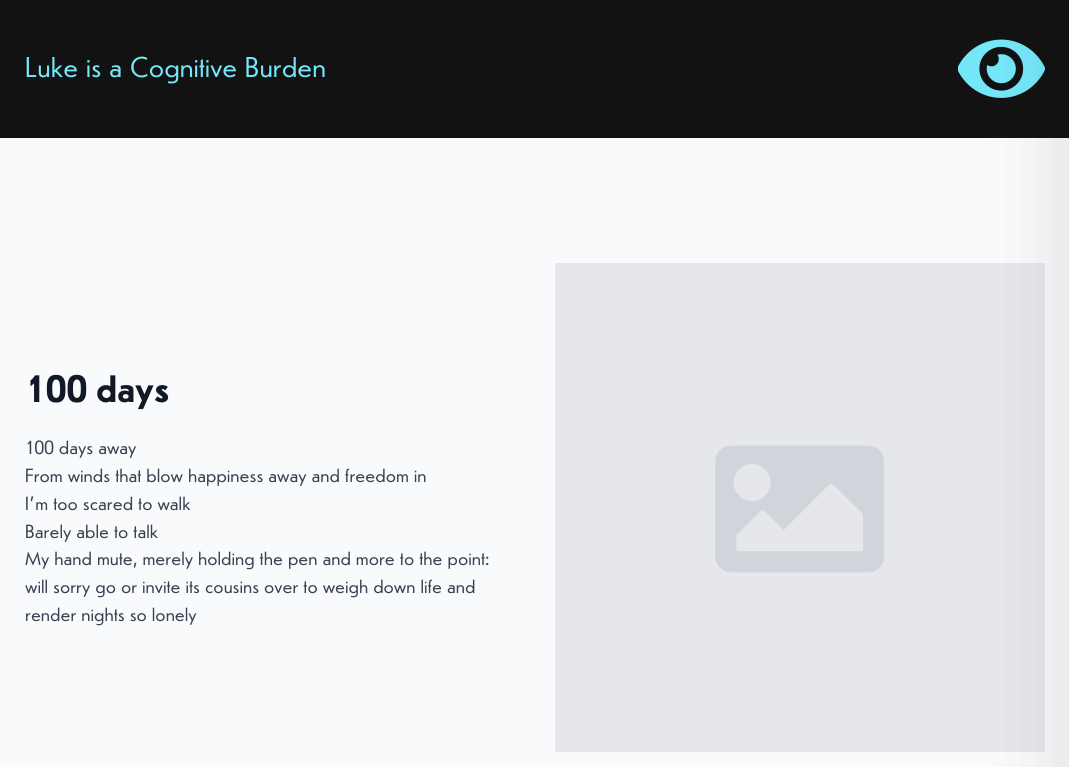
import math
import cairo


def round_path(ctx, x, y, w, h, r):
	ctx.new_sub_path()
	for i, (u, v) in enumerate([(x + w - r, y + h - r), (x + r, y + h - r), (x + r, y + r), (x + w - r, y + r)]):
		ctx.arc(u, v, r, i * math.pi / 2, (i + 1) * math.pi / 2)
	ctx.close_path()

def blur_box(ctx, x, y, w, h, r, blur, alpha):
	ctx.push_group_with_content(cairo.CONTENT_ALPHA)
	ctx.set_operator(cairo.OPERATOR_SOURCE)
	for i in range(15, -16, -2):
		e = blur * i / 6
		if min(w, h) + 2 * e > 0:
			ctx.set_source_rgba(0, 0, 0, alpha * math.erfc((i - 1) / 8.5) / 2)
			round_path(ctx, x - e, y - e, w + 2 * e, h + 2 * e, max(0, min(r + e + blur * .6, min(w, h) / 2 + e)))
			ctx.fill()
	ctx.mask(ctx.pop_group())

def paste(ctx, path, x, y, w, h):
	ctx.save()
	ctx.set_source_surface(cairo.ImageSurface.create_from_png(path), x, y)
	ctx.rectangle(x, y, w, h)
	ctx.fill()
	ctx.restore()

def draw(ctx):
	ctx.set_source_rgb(0.976, 0.98, 0.984)
	ctx.paint()
	ctx.set_source_rgb(0.071, 0.071, 0.071)
	ctx.rectangle(0, 0, 1069, 138)
	ctx.fill()
	ctx.select_font_face('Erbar')
	ctx.set_font_size(30)
	ctx.set_source_rgb(0.455, 0.906, 0.976)
	ctx.move_to(25, 77)
	ctx.show_text('Luke is a Cognitive Burden')
	paste(ctx, 'media/1.png', 958, 39, 87, 59)
	paste(ctx, 'media/2.png', 555, 263, 490, 489)
	ctx.set_source_rgb(0, 0, 0)
	blur_box(ctx, 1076, 25, 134, 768, 0, 47, 0.14)
	ctx.select_font_face('Erbar SemiBold')
	ctx.set_font_size(40)
	ctx.set_source_rgb(0.067, 0.094, 0.153)
	ctx.move_to(25, 402)
	ctx.show_text('100 days')
	ctx.select_font_face('Erbar')
	ctx.set_font_size(20)
	ctx.set_source_rgb(0.216, 0.255, 0.318)
	for x, y, s in [
		(25, 454, '100 days away'),
		(25, 482, 'From winds that blow happiness away and freedom in'),
		(25, 510, 'I’m too scared to walk'),
		(25, 538, 'Barely able to talk'),
		(25, 565, 'My hand mute, merely holding the pen and more to the point:'),
		(25, 593, 'will sorry go or invite its cousins over to weigh down life and'),
		(25, 621, 'render nights so lonely'),
	]:
		ctx.move_to(x, y)
		ctx.show_text(s)


surface = cairo.ImageSurface(cairo.FORMAT_RGB24, 1069, 767)
ctx = cairo.Context(surface)
options = cairo.FontOptions()
options.set_hint_metrics(cairo.HINT_METRICS_OFF)
options.set_hint_style(cairo.HINT_STYLE_NONE)
ctx.set_font_options(options)
ctx.set_miter_limit(4)
draw(ctx)
surface.write_to_png('image.png')
